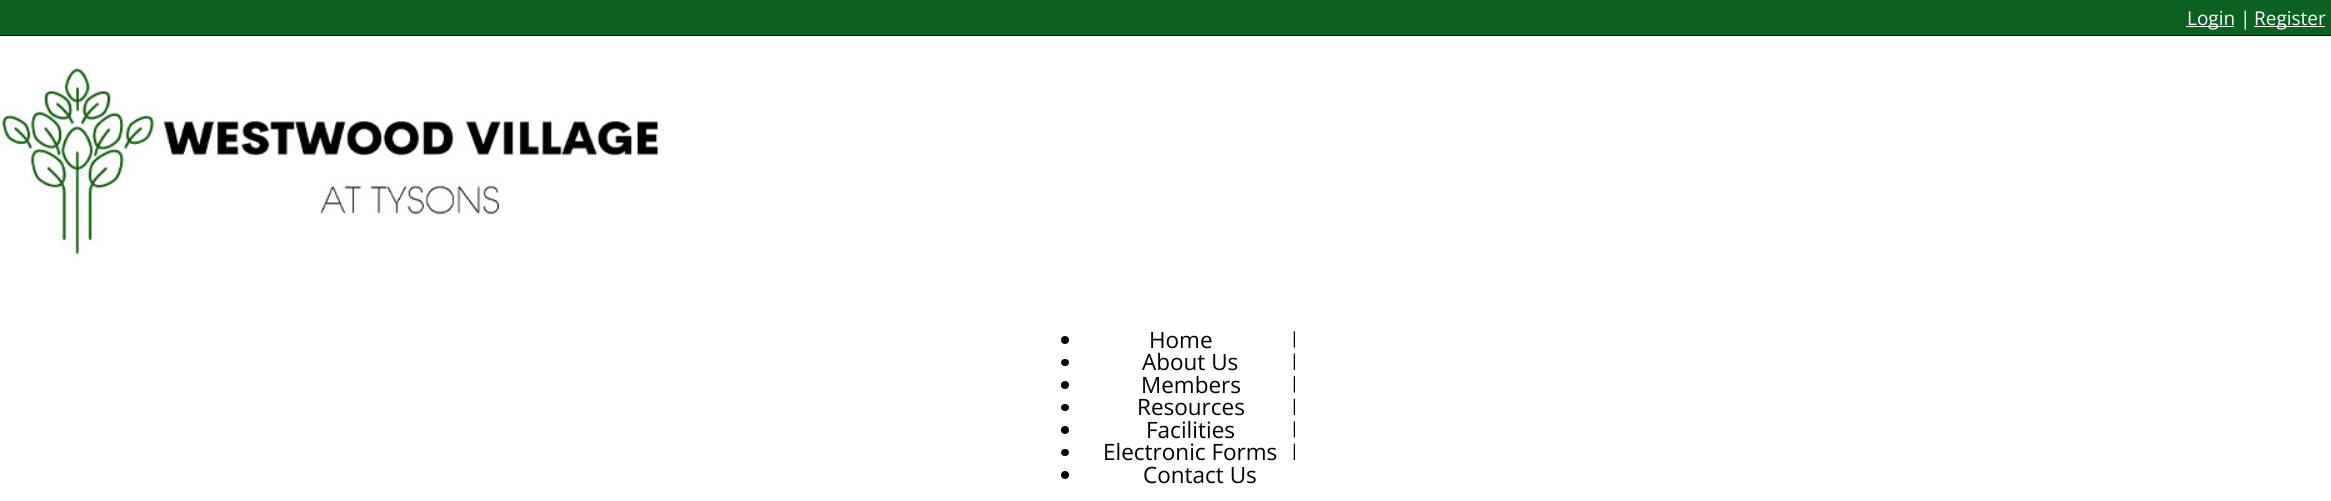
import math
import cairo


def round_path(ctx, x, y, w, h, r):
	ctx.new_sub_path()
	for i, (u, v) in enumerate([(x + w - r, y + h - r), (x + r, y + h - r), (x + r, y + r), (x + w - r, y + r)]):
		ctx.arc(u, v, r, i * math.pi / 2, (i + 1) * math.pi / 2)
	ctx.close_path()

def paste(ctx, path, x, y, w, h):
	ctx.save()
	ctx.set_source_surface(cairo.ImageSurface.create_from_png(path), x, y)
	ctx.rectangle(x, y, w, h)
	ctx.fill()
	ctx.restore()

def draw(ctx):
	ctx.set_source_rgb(1, 1, 1)
	ctx.paint()
	ctx.set_source_rgb(0.043, 0.38, 0.129)
	ctx.rectangle(0, 0, 2331, 35)
	ctx.fill()
	ctx.set_source_rgb(0, 0, 0)
	ctx.rectangle(0, 35, 2331, 1)
	ctx.fill()
	ctx.set_source_rgb(1, 1, 1)
	ctx.rectangle(2186, 26, 48, 1)
	ctx.fill()
	ctx.select_font_face('Open Sans')
	ctx.set_font_size(19)
	ctx.move_to(2187, 25)
	ctx.show_text('Login |')
	ctx.rectangle(2254, 26, 71, 1)
	ctx.fill()
	ctx.move_to(2254, 25)
	ctx.show_text('Register')
	paste(ctx, 'media/1.png', 0, 67, 658, 190)
	paste(ctx, 'media/2.png', 1293, 331, 2, 17)
	ctx.set_source_rgb(0, 0, 0)
	ctx.arc(1065, 340, 4, 0, 2 * math.pi)
	ctx.fill()
	ctx.set_font_size(22.5)
	ctx.move_to(1149, 348)
	ctx.show_text('Home')
	paste(ctx, 'media/3.png', 1293, 353, 2, 17)
	round_path(ctx, 1061, 359, 8, 7, 3.5)
	ctx.fill()
	ctx.move_to(1142, 370)
	ctx.show_text('About Us')
	paste(ctx, 'media/2.png', 1293, 376, 2, 17)
	ctx.arc(1065, 385, 4, 0, 2 * math.pi)
	ctx.fill()
	ctx.move_to(1141, 393)
	ctx.show_text('Members')
	paste(ctx, 'media/3.png', 1293, 398, 2, 17)
	round_path(ctx, 1061, 404, 8, 7, 3.5)
	ctx.fill()
	ctx.move_to(1137, 415)
	ctx.show_text('Resources')
	paste(ctx, 'media/2.png', 1293, 421, 2, 17)
	ctx.arc(1065, 430, 4, 0, 2 * math.pi)
	ctx.fill()
	ctx.move_to(1146, 438)
	ctx.show_text('Facilities')
	paste(ctx, 'media/3.png', 1293, 443, 2, 17)
	round_path(ctx, 1061, 449, 8, 7, 3.5)
	ctx.fill()
	ctx.move_to(1103, 460)
	ctx.show_text('Electronic Forms')
	ctx.new_path()
	ctx.arc(1065, 475, 4, 0, 2 * math.pi)
	ctx.fill()
	ctx.move_to(1143, 483)
	ctx.show_text('Contact Us')


surface = cairo.ImageSurface(cairo.FORMAT_RGB24, 2331, 501)
ctx = cairo.Context(surface)
options = cairo.FontOptions()
options.set_hint_metrics(cairo.HINT_METRICS_OFF)
options.set_hint_style(cairo.HINT_STYLE_NONE)
ctx.set_font_options(options)
ctx.set_miter_limit(4)
draw(ctx)
surface.write_to_png('image.png')
